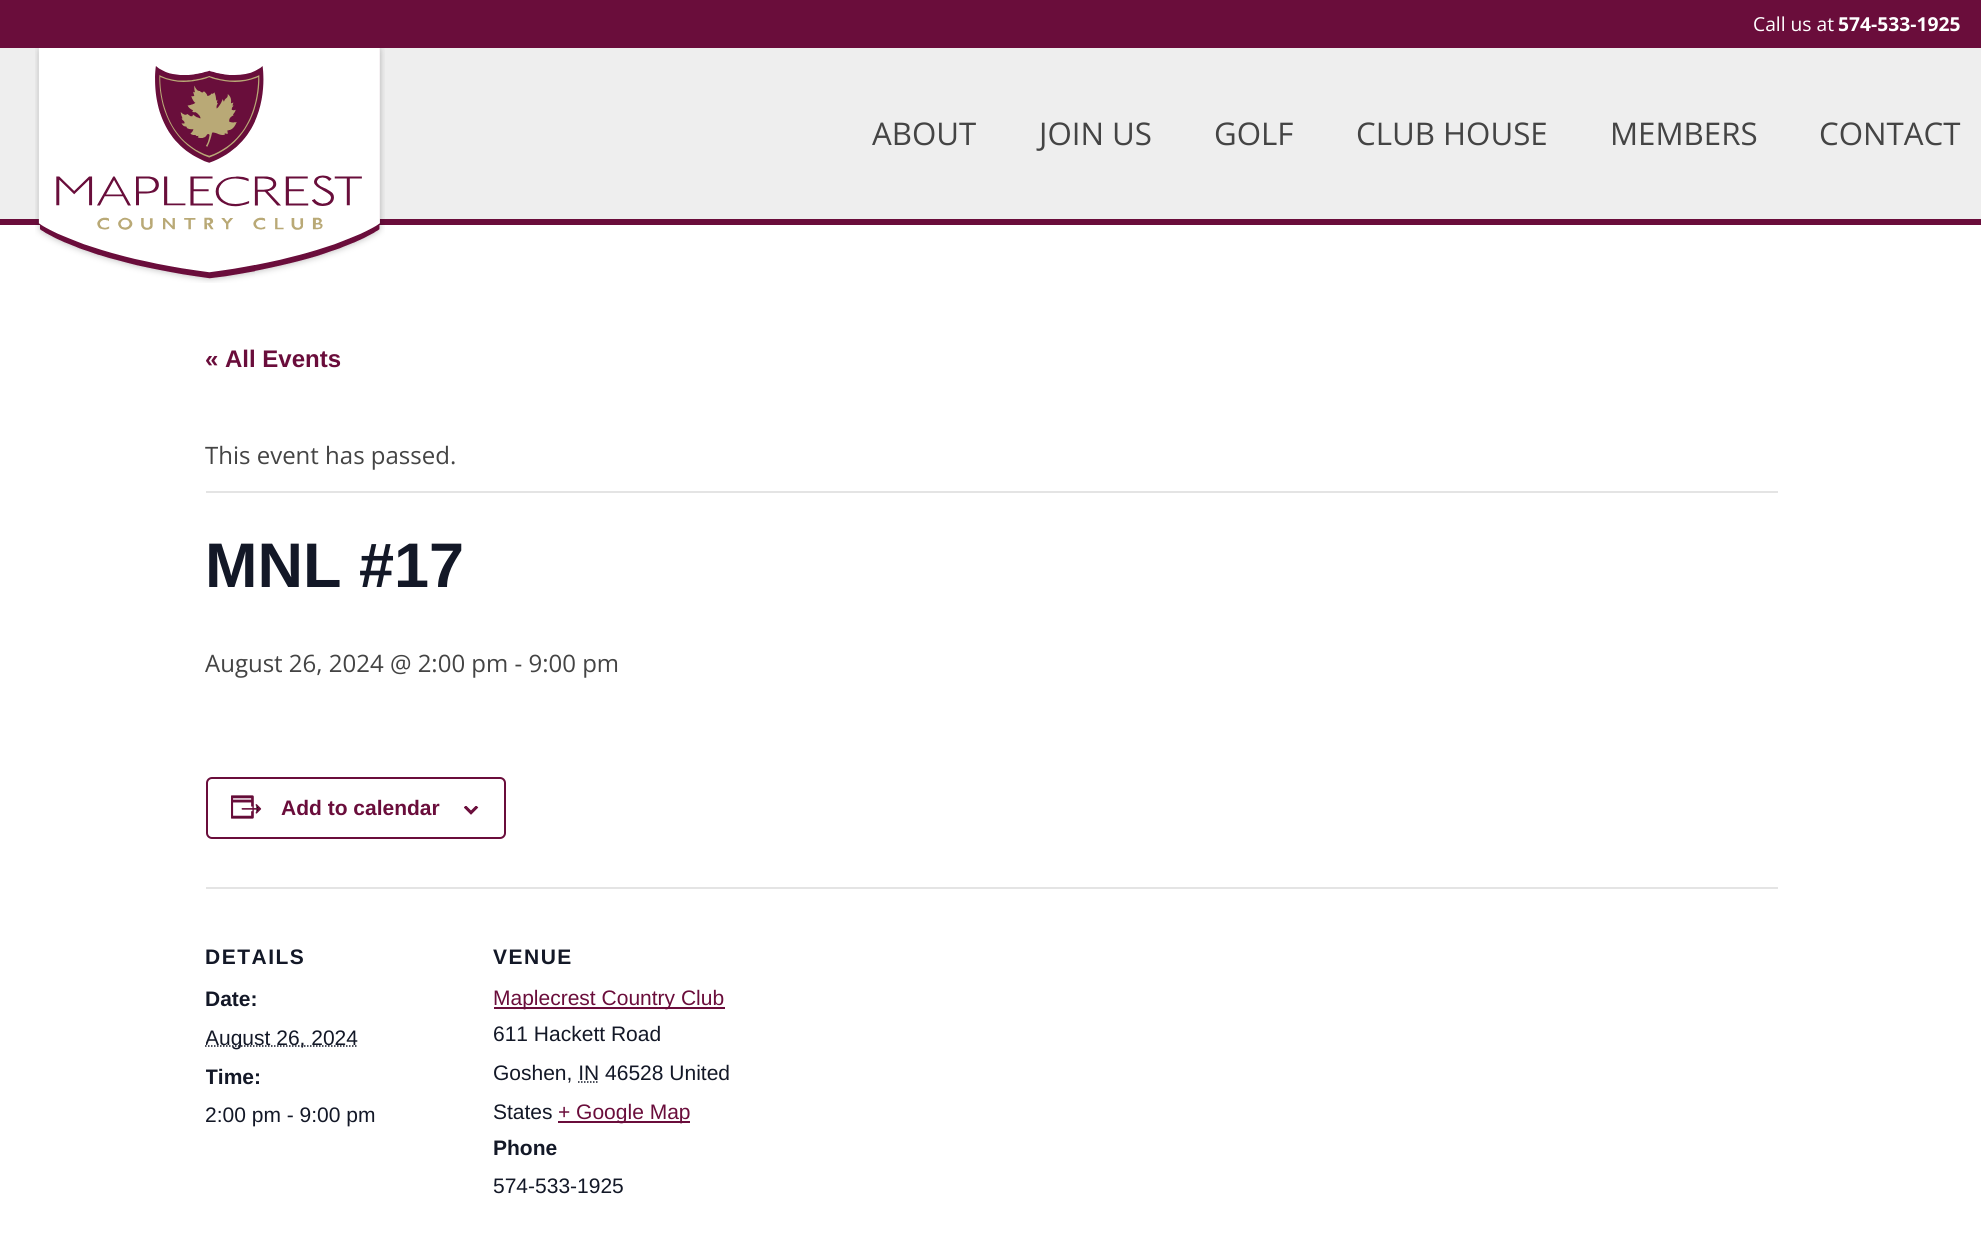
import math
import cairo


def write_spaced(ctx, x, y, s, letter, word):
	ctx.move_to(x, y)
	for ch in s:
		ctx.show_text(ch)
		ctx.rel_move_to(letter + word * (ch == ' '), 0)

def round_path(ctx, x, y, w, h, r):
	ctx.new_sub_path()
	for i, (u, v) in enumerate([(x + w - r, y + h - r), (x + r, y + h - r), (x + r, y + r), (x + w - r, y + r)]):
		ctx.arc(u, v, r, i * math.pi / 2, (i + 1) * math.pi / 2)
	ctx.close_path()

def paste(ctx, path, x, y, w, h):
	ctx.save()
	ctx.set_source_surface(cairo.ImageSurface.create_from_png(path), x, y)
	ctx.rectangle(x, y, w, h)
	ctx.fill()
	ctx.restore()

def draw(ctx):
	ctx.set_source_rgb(1, 1, 1)
	ctx.paint()
	ctx.set_source_rgb(0.416, 0.051, 0.231)
	ctx.rectangle(0, 0, 1981, 48)
	ctx.fill()
	ctx.select_font_face('Open Sans')
	ctx.set_font_size(19.25)
	ctx.set_source_rgb(1, 1, 1)
	ctx.move_to(1753, 31)
	ctx.show_text('Call us at')
	ctx.select_font_face('Open Sans', cairo.FONT_SLANT_NORMAL, cairo.FONT_WEIGHT_BOLD)
	ctx.move_to(1838, 31)
	ctx.show_text('574-533-1925')
	ctx.set_source_rgb(0.933, 0.933, 0.933)
	ctx.rectangle(0, 48, 1981, 171)
	ctx.fill()
	ctx.set_source_rgb(0.416, 0.051, 0.231)
	ctx.rectangle(0, 219, 1981, 6)
	ctx.fill()
	paste(ctx, 'media/1.png', 35, 48, 350, 235)
	ctx.select_font_face('Open Sans')
	ctx.set_font_size(31.25)
	ctx.set_source_rgb(0.267, 0.267, 0.267)
	for x, y, s in [
		(872, 145, 'ABOUT'),
		(1039, 145, 'JOIN US'),
		(1214, 145, 'GOLF'),
		(1356, 145, 'CLUB HOUSE'),
		(1610, 145, 'MEMBERS'),
		(1819, 145, 'CONTACT'),
	]:
		ctx.move_to(x, y)
		ctx.show_text(s)
	ctx.select_font_face('Liberation Sans', cairo.FONT_SLANT_NORMAL, cairo.FONT_WEIGHT_BOLD)
	ctx.set_font_size(24)
	ctx.set_source_rgb(0.416, 0.051, 0.231)
	ctx.move_to(205, 367)
	ctx.show_text('« All Events')
	ctx.set_source_rgb(0.894, 0.894, 0.894)
	ctx.rectangle(206, 491, 1572, 2)
	ctx.fill()
	ctx.select_font_face('Open Sans')
	ctx.set_source_rgb(0.267, 0.267, 0.267)
	ctx.move_to(205, 464)
	ctx.show_text('This event has passed.')
	ctx.select_font_face('Liberation Sans', cairo.FONT_SLANT_NORMAL, cairo.FONT_WEIGHT_BOLD)
	ctx.set_font_size(63)
	ctx.set_source_rgb(0.078, 0.094, 0.153)
	ctx.move_to(205, 587)
	ctx.show_text('MNL #17')
	ctx.select_font_face('Open Sans')
	ctx.set_font_size(24)
	ctx.set_source_rgb(0.267, 0.267, 0.267)
	ctx.move_to(205, 672)
	ctx.show_text('August 26, 2024 @ 2:00 pm - 9:00 pm')
	round_path(ctx, 207, 778, 298, 60, 5)
	ctx.set_source_rgb(0.416, 0.051, 0.231)
	ctx.stroke()
	paste(ctx, 'media/2.png', 231, 795, 31, 24)
	ctx.select_font_face('Liberation Sans', cairo.FONT_SLANT_NORMAL, cairo.FONT_WEIGHT_BOLD)
	ctx.set_font_size(21)
	ctx.move_to(281, 815)
	ctx.show_text('Add to calendar')
	paste(ctx, 'media/3.png', 464, 806, 15, 9)
	ctx.set_source_rgb(0.894, 0.894, 0.894)
	ctx.rectangle(206, 887, 1572, 2)
	ctx.fill()
	ctx.set_source_rgb(0.078, 0.094, 0.153)
	write_spaced(ctx, 205, 964, 'DETAILS', 1.5, 0)
	ctx.move_to(205, 1006)
	ctx.show_text('Date:')
	ctx.new_path()
	ctx.move_to(205, 1046)
	ctx.line_to(357.5, 1046)
	ctx.set_line_width(1.5)
	ctx.set_dash([1.5, 1.5])
	ctx.stroke()
	ctx.save()
	ctx.rectangle(206, 729, 1572, 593)
	ctx.clip()
	ctx.select_font_face('Liberation Sans')
	ctx.move_to(205, 1045)
	ctx.show_text('August 26, 2024')
	ctx.select_font_face('Liberation Sans', cairo.FONT_SLANT_NORMAL, cairo.FONT_WEIGHT_BOLD)
	ctx.move_to(205, 1084)
	ctx.show_text('Time:')
	ctx.restore()
	ctx.select_font_face('Liberation Sans')
	ctx.move_to(205, 1122)
	ctx.show_text('2:00 pm - 9:00 pm')
	ctx.select_font_face('Liberation Sans', cairo.FONT_SLANT_NORMAL, cairo.FONT_WEIGHT_BOLD)
	write_spaced(ctx, 493, 964, 'VENUE', 1.5, 0)
	ctx.set_source_rgb(0.416, 0.051, 0.231)
	ctx.rectangle(494, 1007, 231, 2)
	ctx.fill()
	ctx.select_font_face('Liberation Sans')
	ctx.move_to(493, 1005)
	ctx.show_text('Maplecrest Country Club')
	ctx.set_source_rgb(0.078, 0.094, 0.153)
	ctx.move_to(493, 1041)
	ctx.show_text('611 Hackett Road')
	ctx.move_to(493, 1080)
	ctx.show_text('Goshen, IN 46528 United')
	ctx.new_path()
	ctx.move_to(578, 1082)
	ctx.line_to(599, 1082)
	ctx.stroke()
	ctx.move_to(493, 1119)
	ctx.show_text('States')
	ctx.set_source_rgb(0.416, 0.051, 0.231)
	ctx.rectangle(558, 1121, 132, 2)
	ctx.fill()
	ctx.move_to(558, 1119)
	ctx.show_text('+ Google Map')
	ctx.select_font_face('Liberation Sans', cairo.FONT_SLANT_NORMAL, cairo.FONT_WEIGHT_BOLD)
	ctx.set_source_rgb(0.078, 0.094, 0.153)
	ctx.move_to(493, 1155)
	ctx.show_text('Phone')
	ctx.select_font_face('Liberation Sans')
	ctx.move_to(493, 1193)
	ctx.show_text('574-533-1925')


surface = cairo.ImageSurface(cairo.FORMAT_RGB24, 1981, 1253)
ctx = cairo.Context(surface)
options = cairo.FontOptions()
options.set_hint_metrics(cairo.HINT_METRICS_OFF)
options.set_hint_style(cairo.HINT_STYLE_NONE)
ctx.set_font_options(options)
ctx.set_miter_limit(4)
draw(ctx)
surface.write_to_png('image.png')
